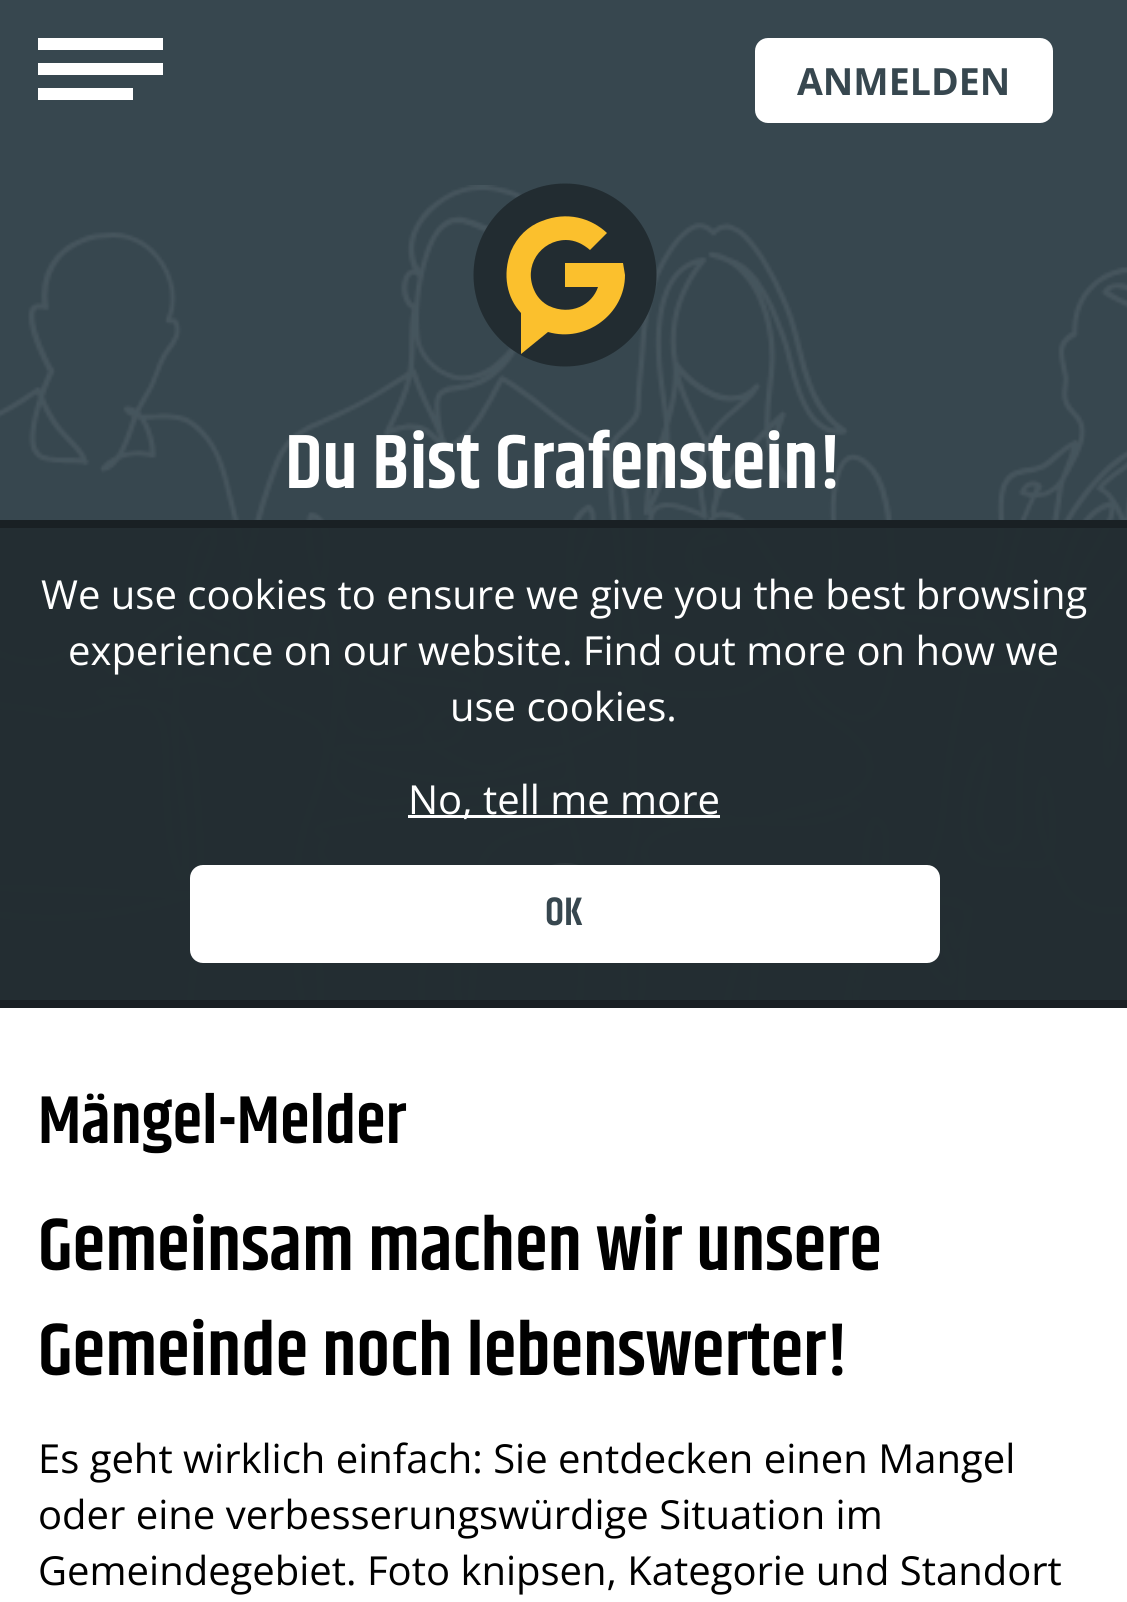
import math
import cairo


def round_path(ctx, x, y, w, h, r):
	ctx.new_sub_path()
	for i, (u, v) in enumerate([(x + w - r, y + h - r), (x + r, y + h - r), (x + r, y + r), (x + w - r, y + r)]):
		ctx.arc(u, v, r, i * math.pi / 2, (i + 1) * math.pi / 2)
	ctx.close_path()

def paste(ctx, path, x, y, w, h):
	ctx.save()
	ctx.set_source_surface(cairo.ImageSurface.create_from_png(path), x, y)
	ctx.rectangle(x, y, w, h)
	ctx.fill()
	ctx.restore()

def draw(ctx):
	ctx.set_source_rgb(1, 1, 1)
	ctx.paint()
	ctx.set_source_rgb(0.216, 0.278, 0.31)
	ctx.rectangle(0, 0, 1127, 1000)
	ctx.fill()
	ctx.set_source_rgb(1, 1, 1)
	ctx.rectangle(38, 63, 125, 12)
	ctx.rectangle(38, 38, 125, 12)
	ctx.rectangle(38, 88, 95, 12)
	ctx.fill()
	round_path(ctx, 757.5, 40.5, 293, 80, 10.5)
	ctx.fill_preserve()
	ctx.set_line_width(5)
	ctx.stroke()
	ctx.select_font_face('Open Sans', cairo.FONT_SLANT_NORMAL, cairo.FONT_WEIGHT_BOLD)
	ctx.set_font_size(37.5)
	ctx.set_source_rgb(0.216, 0.278, 0.31)
	ctx.move_to(797, 95)
	ctx.show_text('ANMELDEN')
	paste(ctx, 'media/1.png', 0, 185, 1127, 815)
	ctx.set_source_rgb(0.133, 0.173, 0.192)
	ctx.arc(565, 275, 91.5, 0, 2 * math.pi)
	ctx.fill()
	ctx.set_source_rgb(0.984, 0.753, 0.176)
	ctx.new_path()
	ctx.move_to(625, 275)
	ctx.line_to(623, 263)
	ctx.line_to(565, 263)
	ctx.line_to(565, 287)
	ctx.line_to(598, 287)
	ctx.curve_to(592, 305, 571, 316, 549, 306)
	ctx.curve_to(543, 303, 538, 298, 535, 292)
	ctx.curve_to(522, 266, 541, 240, 566, 240)
	ctx.curve_to(575, 240, 583, 244, 590, 250)
	ctx.line_to(607, 233)
	ctx.curve_to(591, 218, 567, 211, 542, 221)
	ctx.curve_to(528, 226, 517, 237, 511, 251)
	ctx.curve_to(502, 275, 507, 298, 521, 313)
	ctx.line_to(521, 354)
	ctx.line_to(548, 332)
	ctx.curve_to(586, 343, 625, 314, 625, 275)
	ctx.close_path()
	ctx.fill()
	ctx.select_font_face('Khand SemiBold')
	ctx.set_font_size(77.25)
	ctx.set_source_rgb(1, 1, 1)
	ctx.move_to(285, 488)
	ctx.show_text('Du Bist Grafenstein!')
	ctx.new_path()
	ctx.arc(565, 913, 50, 0, 2 * math.pi)
	ctx.fill()
	ctx.set_source_rgba(0.133, 0.173, 0.192, 0.95)
	ctx.rectangle(0, 528, 1127, 472)
	ctx.fill()
	ctx.set_source_rgb(0.098, 0.125, 0.141)
	ctx.rectangle(0, 520, 1127, 8)
	ctx.fill()
	ctx.set_source_rgb(0.102, 0.125, 0.145)
	ctx.rectangle(0, 1000, 1127, 8)
	ctx.fill()
	ctx.select_font_face('Open Sans')
	ctx.set_font_size(40)
	ctx.set_source_rgb(1, 1, 1)
	for x, y, s in [
		(41, 609, 'We use cookies to ensure we give you the best browsing'),
		(68, 665, 'experience on our website. Find out more on how we'),
		(450, 721, 'use cookies.'),
	]:
		ctx.move_to(x, y)
		ctx.show_text(s)
	ctx.rectangle(408, 815, 312, 3)
	ctx.fill()
	ctx.move_to(408, 814)
	ctx.show_text('No, tell me more')
	round_path(ctx, 190, 865, 750, 98, 13)
	ctx.fill()
	ctx.select_font_face('Khand SemiBold')
	ctx.set_source_rgb(0.216, 0.278, 0.31)
	ctx.move_to(545, 925)
	ctx.show_text('OK')
	ctx.set_font_size(68)
	ctx.set_source_rgb(0, 0, 0)
	ctx.move_to(38, 1143)
	ctx.show_text('Mängel-Melder')
	ctx.set_font_size(75)
	ctx.move_to(38, 1270)
	ctx.show_text('Gemeinsam machen wir unsere')
	ctx.move_to(38, 1375)
	ctx.show_text('Gemeinde noch lebenswerter!')
	ctx.select_font_face('Open Sans')
	ctx.set_font_size(40)
	for x, y, s in [
		(38, 1473, 'Es geht wirklich einfach: Sie entdecken einen Mangel'),
		(38, 1529, 'oder eine verbesserungswürdige Situation im'),
		(38, 1585, 'Gemeindegebiet. Foto knipsen, Kategorie und Standort'),
	]:
		ctx.move_to(x, y)
		ctx.show_text(s)


surface = cairo.ImageSurface(cairo.FORMAT_RGB24, 1127, 1602)
ctx = cairo.Context(surface)
options = cairo.FontOptions()
options.set_hint_metrics(cairo.HINT_METRICS_OFF)
options.set_hint_style(cairo.HINT_STYLE_NONE)
ctx.set_font_options(options)
ctx.set_miter_limit(4)
draw(ctx)
surface.write_to_png('image.png')
